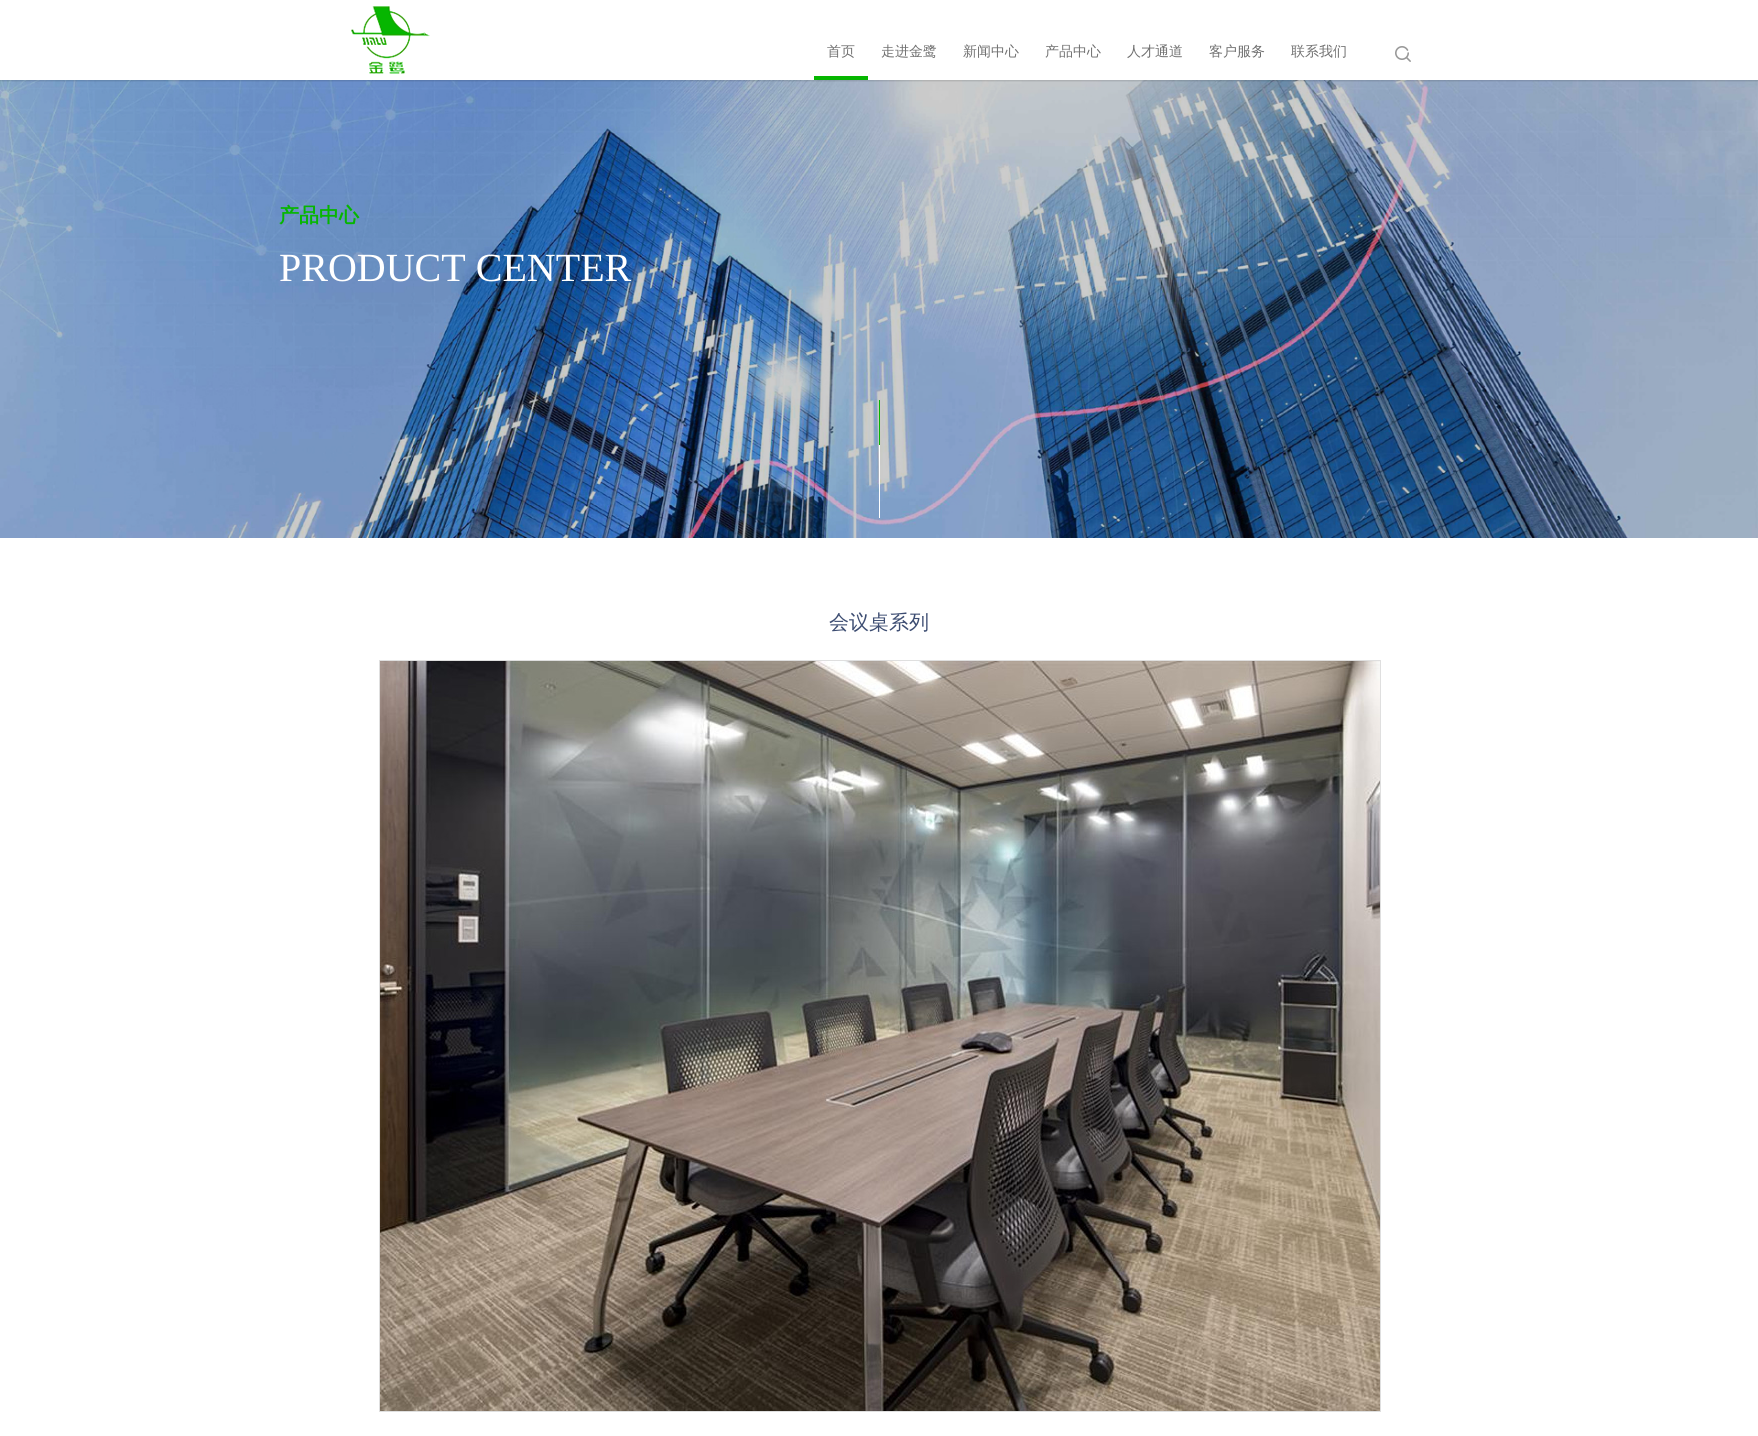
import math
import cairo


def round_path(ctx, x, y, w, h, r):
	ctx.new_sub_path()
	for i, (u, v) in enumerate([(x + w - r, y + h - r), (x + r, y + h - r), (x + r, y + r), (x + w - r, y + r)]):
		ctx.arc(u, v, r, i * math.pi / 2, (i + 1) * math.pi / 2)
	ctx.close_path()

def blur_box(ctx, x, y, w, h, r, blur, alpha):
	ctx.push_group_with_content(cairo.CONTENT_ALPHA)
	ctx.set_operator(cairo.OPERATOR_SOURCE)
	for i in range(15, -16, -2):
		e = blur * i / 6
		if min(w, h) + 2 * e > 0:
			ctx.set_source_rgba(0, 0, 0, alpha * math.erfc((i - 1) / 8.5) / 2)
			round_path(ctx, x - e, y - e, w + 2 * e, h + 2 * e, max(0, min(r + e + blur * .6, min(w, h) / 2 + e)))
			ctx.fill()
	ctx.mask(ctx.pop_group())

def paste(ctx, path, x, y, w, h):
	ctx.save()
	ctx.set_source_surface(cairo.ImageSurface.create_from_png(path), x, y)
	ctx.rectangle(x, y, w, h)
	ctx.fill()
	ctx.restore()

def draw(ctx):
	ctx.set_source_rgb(1, 1, 1)
	ctx.paint()
	paste(ctx, 'media/3.png', 0, 80, 1758, 458)
	ctx.save()
	ctx.rectangle(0, 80, 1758, 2)
	ctx.clip()
	ctx.set_source_rgb(0, 0, 0)
	blur_box(ctx, 0, 0, 1758, 80, 0, 1.5, 0.3)
	ctx.restore()
	paste(ctx, 'media/1.png', 351, 6, 79, 68)
	ctx.select_font_face('WenQuanYi Zen Hei Medium')
	ctx.set_font_size(14)
	ctx.set_source_rgb(0.439, 0.439, 0.439)
	for x, y, s in [
		(827, 56, '首页'),
		(881, 56, '走进金鹭'),
		(963, 56, '新闻中心'),
		(1045, 56, '产品中心'),
		(1127, 56, '人才通道'),
		(1209, 56, '客户服务'),
		(1291, 56, '联系我们'),
	]:
		ctx.move_to(x, y)
		ctx.show_text(s)
	ctx.set_source_rgb(0.024, 0.714, 0)
	ctx.rectangle(814, 76, 54, 4)
	ctx.fill()
	paste(ctx, 'media/2.png', 1395, 46, 16, 16)
	ctx.select_font_face('WenQuanYi Zen Hei', cairo.FONT_SLANT_NORMAL, cairo.FONT_WEIGHT_BOLD)
	ctx.set_font_size(20)
	ctx.move_to(279, 222)
	ctx.show_text('产品中心')
	ctx.select_font_face('Liberation Serif')
	ctx.set_font_size(40)
	ctx.set_source_rgb(1, 1, 1)
	ctx.move_to(279, 281)
	ctx.show_text('PRODUCT CENTER')
	ctx.rectangle(879, 445, 1, 73)
	ctx.fill()
	ctx.set_source_rgb(0.024, 0.714, 0)
	ctx.rectangle(879, 400, 1, 45)
	ctx.fill()
	ctx.select_font_face('WenQuanYi Zen Hei Medium')
	ctx.set_font_size(20)
	ctx.set_source_rgb(0.239, 0.302, 0.447)
	ctx.move_to(829, 629)
	ctx.show_text('会议桌系列')
	ctx.rectangle(379.5, 660.5, 1001, 751)
	ctx.set_source_rgb(0.875, 0.875, 0.875)
	ctx.set_line_width(1)
	ctx.stroke()
	paste(ctx, 'media/4.png', 380, 661, 1000, 750)


surface = cairo.ImageSurface(cairo.FORMAT_RGB24, 1758, 1436)
ctx = cairo.Context(surface)
options = cairo.FontOptions()
options.set_hint_metrics(cairo.HINT_METRICS_OFF)
options.set_hint_style(cairo.HINT_STYLE_NONE)
ctx.set_font_options(options)
ctx.set_miter_limit(4)
draw(ctx)
surface.write_to_png('image.png')
